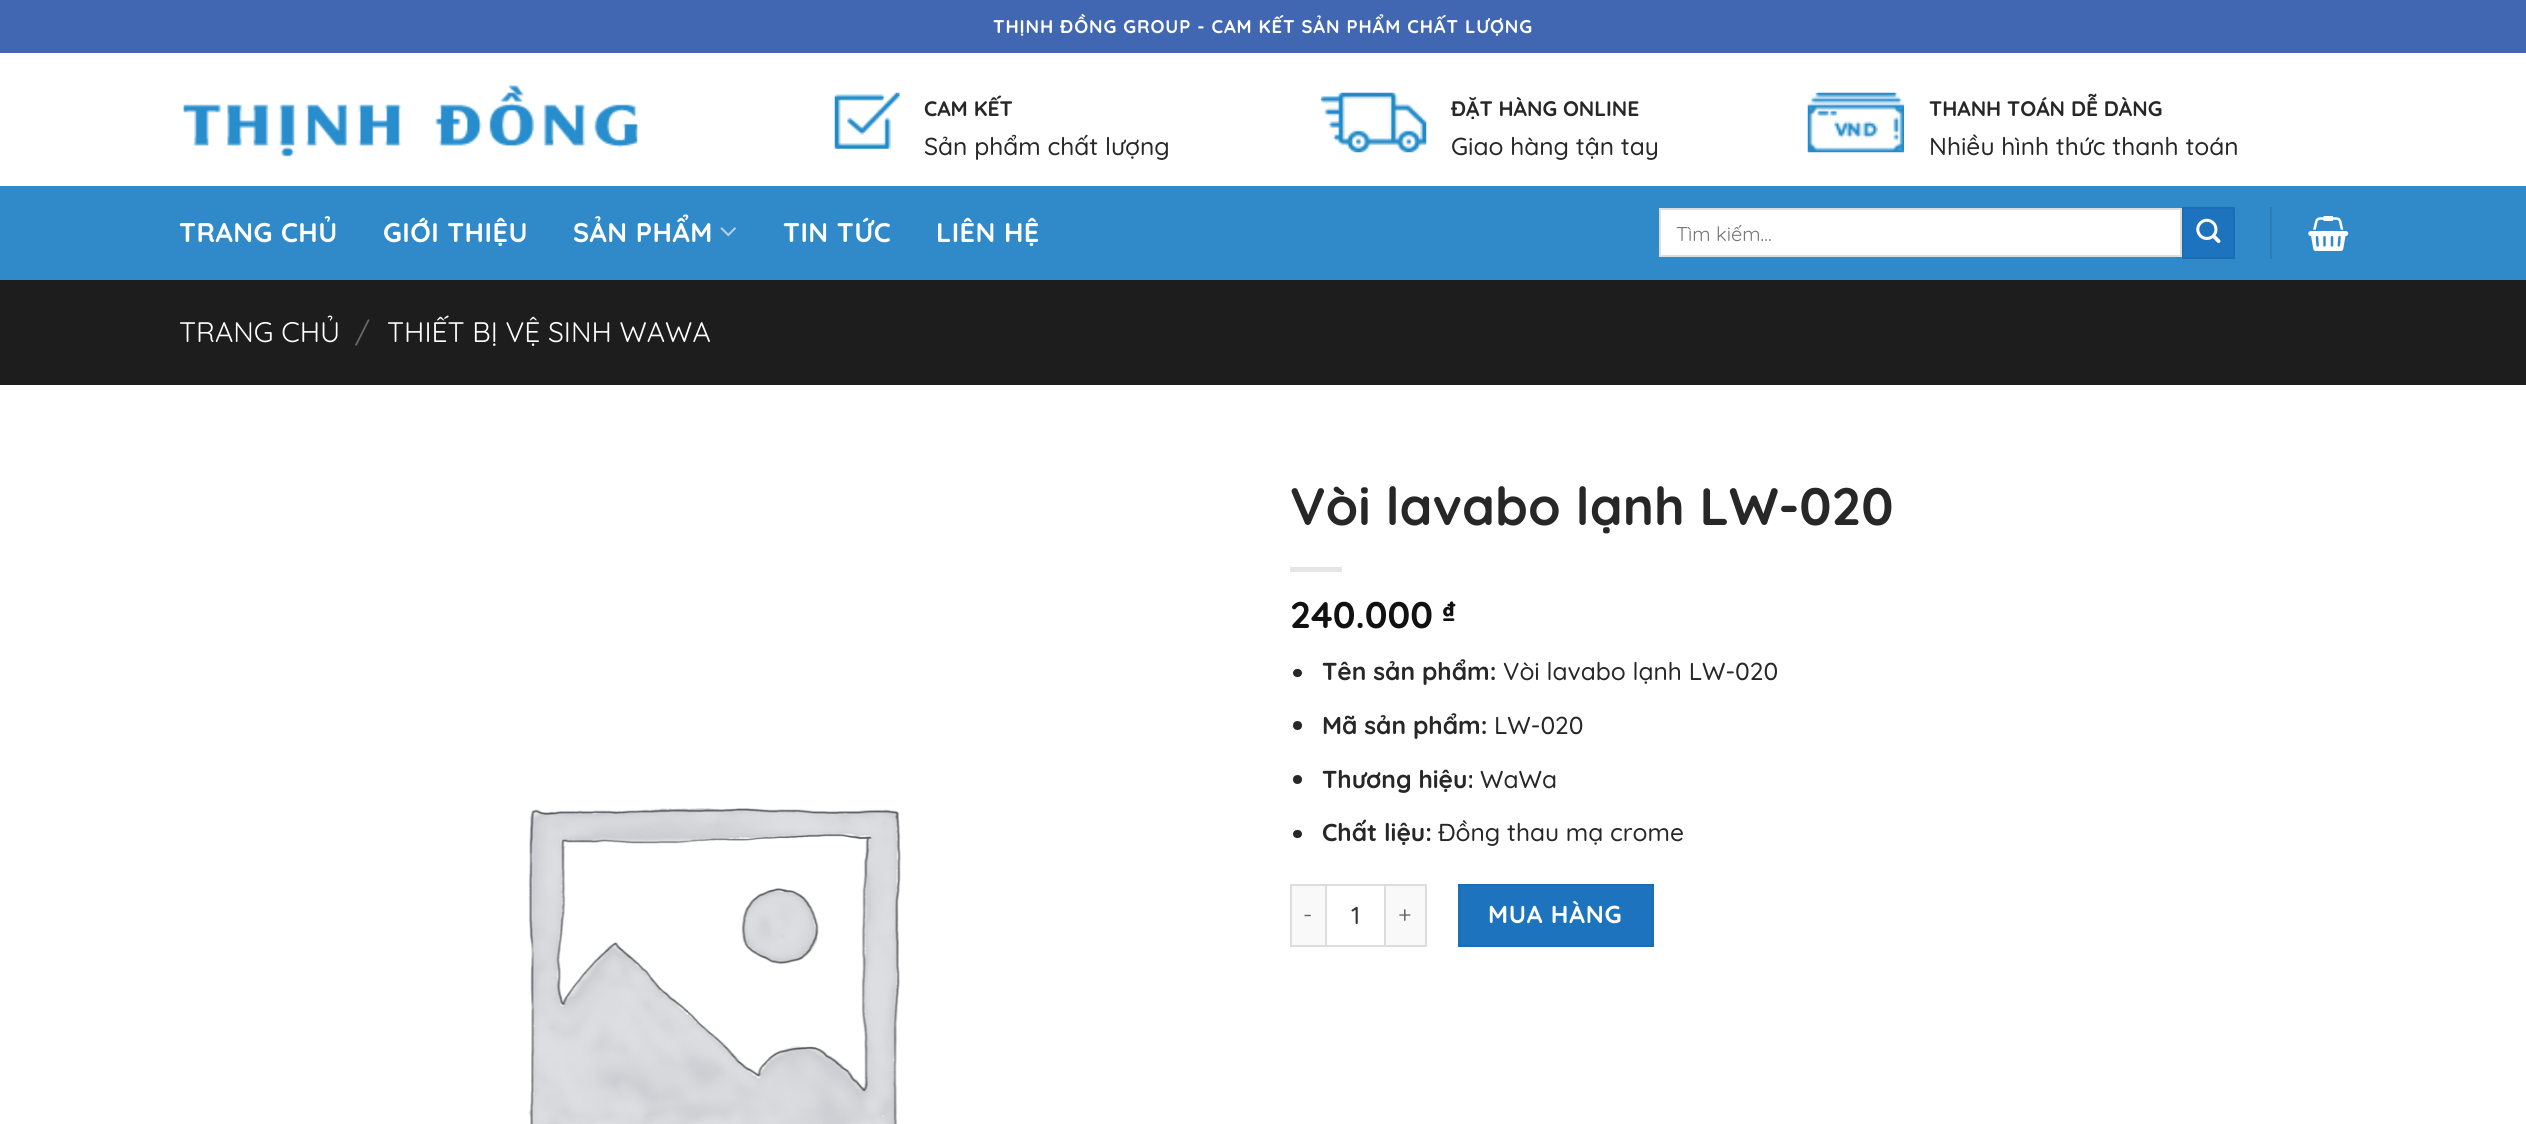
import math
import cairo


def write_spaced(ctx, x, y, s, letter, word):
	ctx.move_to(x, y)
	for ch in s:
		ctx.show_text(ch)
		ctx.rel_move_to(letter + word * (ch == ' '), 0)

def round_path(ctx, x, y, w, h, r):
	ctx.new_sub_path()
	for i, (u, v) in enumerate([(x + w - r, y + h - r), (x + r, y + h - r), (x + r, y + r), (x + w - r, y + r)]):
		ctx.arc(u, v, r, i * math.pi / 2, (i + 1) * math.pi / 2)
	ctx.close_path()

def paste(ctx, path, x, y, w, h):
	ctx.save()
	ctx.set_source_surface(cairo.ImageSurface.create_from_png(path), x, y)
	ctx.rectangle(x, y, w, h)
	ctx.fill()
	ctx.restore()

def draw(ctx):
	ctx.set_source_rgb(1, 1, 1)
	ctx.paint()
	ctx.set_source_rgb(0.259, 0.404, 0.698)
	ctx.rectangle(0, 0, 2526, 53)
	ctx.fill()
	ctx.select_font_face('Quicksand', cairo.FONT_SLANT_NORMAL, cairo.FONT_WEIGHT_BOLD)
	ctx.set_font_size(18.4)
	ctx.set_source_rgb(1, 1, 1)
	write_spaced(ctx, 993, 33, 'THỊNH ĐỒNG GROUP - CAM KẾT SẢN PHẨM CHẤT LƯỢNG', 0.9, 0)
	paste(ctx, 'media/1.png', 183, 85, 455, 72)
	paste(ctx, 'media/2.png', 834, 92, 66, 57)
	ctx.set_font_size(21)
	ctx.set_source_rgb(0.153, 0.153, 0.153)
	ctx.move_to(924, 116)
	ctx.show_text('CAM KẾT')
	ctx.select_font_face('Quicksand Medium')
	ctx.set_font_size(24.5)
	ctx.move_to(924, 155)
	ctx.show_text('Sản phẩm chất lượng')
	paste(ctx, 'media/3.png', 1321, 92, 106, 61)
	ctx.select_font_face('Quicksand', cairo.FONT_SLANT_NORMAL, cairo.FONT_WEIGHT_BOLD)
	ctx.set_font_size(21)
	ctx.move_to(1451, 116)
	ctx.show_text('ĐẶT HÀNG ONLINE')
	ctx.select_font_face('Quicksand Medium')
	ctx.set_font_size(24.5)
	ctx.move_to(1451, 155)
	ctx.show_text('Giao hàng tận tay')
	paste(ctx, 'media/4.png', 1807, 92, 97, 61)
	ctx.select_font_face('Quicksand', cairo.FONT_SLANT_NORMAL, cairo.FONT_WEIGHT_BOLD)
	ctx.set_font_size(21)
	ctx.move_to(1929, 116)
	ctx.show_text('THANH TOÁN DỄ DÀNG')
	ctx.select_font_face('Quicksand Medium')
	ctx.set_font_size(24.5)
	ctx.move_to(1929, 155)
	ctx.show_text('Nhiều hình thức thanh toán')
	ctx.set_source_rgb(0.188, 0.541, 0.788)
	ctx.rectangle(0, 186, 2526, 94)
	ctx.fill()
	ctx.select_font_face('Quicksand', cairo.FONT_SLANT_NORMAL, cairo.FONT_WEIGHT_BOLD)
	ctx.set_font_size(27)
	ctx.set_source_rgb(1, 1, 1)
	for x, y, s in [
		(179, 242, 'TRANG CHỦ'),
		(383, 242, 'GIỚI THIỆU'),
		(573, 242, 'SẢN PHẨM'),
	]:
		write_spaced(ctx, x, y, s, 0.5, 0)
	paste(ctx, 'media/5.png', 720, 227, 16, 10)
	write_spaced(ctx, 783, 242, 'TIN TỨC', 0.5, 0)
	write_spaced(ctx, 936, 242, 'LIÊN HỆ', 0.5, 0)
	ctx.rectangle(1660, 209, 521, 47)
	ctx.fill_preserve()
	ctx.set_source_rgb(0.867, 0.867, 0.867)
	ctx.stroke()
	ctx.select_font_face('Quicksand')
	ctx.set_font_size(20)
	ctx.set_source_rgb(0.459, 0.459, 0.459)
	ctx.move_to(1676, 241)
	ctx.show_text('Tìm kiếm…')
	ctx.set_source_rgb(0.118, 0.451, 0.745)
	ctx.rectangle(2183, 208, 51, 50)
	ctx.fill_preserve()
	ctx.set_source_rgb(0.114, 0.427, 0.71)
	ctx.stroke()
	paste(ctx, 'media/6.png', 2196, 218, 25, 25)
	ctx.set_source_rgb(0.169, 0.486, 0.71)
	ctx.rectangle(2270, 207, 2, 52)
	ctx.fill()
	paste(ctx, 'media/7.png', 2308, 216, 41, 35)
	ctx.set_source_rgb(0.114, 0.114, 0.114)
	ctx.rectangle(0, 280, 2526, 105)
	ctx.fill()
	ctx.set_font_size(28.25)
	ctx.set_source_rgb(1, 1, 1)
	ctx.move_to(179, 342)
	ctx.show_text('TRANG CHỦ')
	ctx.set_source_rgb(0.424, 0.424, 0.424)
	ctx.move_to(355, 342)
	ctx.show_text('/')
	ctx.set_source_rgb(1, 1, 1)
	ctx.move_to(387, 342)
	ctx.show_text('THIẾT BỊ VỆ SINH WAWA')
	ctx.select_font_face('Quicksand', cairo.FONT_SLANT_NORMAL, cairo.FONT_WEIGHT_BOLD)
	ctx.set_font_size(52.5)
	ctx.set_source_rgb(0.153, 0.153, 0.153)
	ctx.move_to(1290, 525)
	ctx.show_text('Vòi lavabo lạnh LW-020')
	ctx.set_source_rgb(0.902, 0.902, 0.902)
	ctx.rectangle(1290, 567, 52, 5)
	ctx.fill()
	ctx.set_font_size(37)
	ctx.set_source_rgb(0.067, 0.067, 0.067)
	ctx.move_to(1290, 628)
	ctx.show_text('240.000')
	ctx.set_font_size(28)
	ctx.move_to(1442, 621)
	ctx.show_text('₫')
	ctx.set_source_rgb(0.153, 0.153, 0.153)
	round_path(ctx, 1293, 669, 9, 8, 4)
	ctx.fill()
	ctx.set_font_size(24.5)
	ctx.move_to(1322, 680)
	ctx.show_text('Tên sản phẩm:')
	ctx.select_font_face('Quicksand Medium')
	ctx.move_to(1503, 680)
	ctx.show_text('Vòi lavabo lạnh LW-020')
	ctx.new_path()
	ctx.arc(1297.5, 725.5, 4.5, 0, 2 * math.pi)
	ctx.fill()
	ctx.select_font_face('Quicksand', cairo.FONT_SLANT_NORMAL, cairo.FONT_WEIGHT_BOLD)
	ctx.move_to(1322, 734)
	ctx.show_text('Mã sản phẩm:')
	ctx.select_font_face('Quicksand Medium')
	ctx.move_to(1494, 734)
	ctx.show_text('LW-020')
	ctx.new_path()
	ctx.arc(1297.5, 779.5, 4.5, 0, 2 * math.pi)
	ctx.fill()
	ctx.select_font_face('Quicksand', cairo.FONT_SLANT_NORMAL, cairo.FONT_WEIGHT_BOLD)
	ctx.move_to(1322, 788)
	ctx.show_text('Thương hiệu:')
	ctx.select_font_face('Quicksand Medium')
	ctx.move_to(1480, 788)
	ctx.show_text('WaWa')
	round_path(ctx, 1293, 830, 9, 8, 4)
	ctx.fill()
	ctx.select_font_face('Quicksand', cairo.FONT_SLANT_NORMAL, cairo.FONT_WEIGHT_BOLD)
	ctx.move_to(1322, 841)
	ctx.show_text('Chất liệu:')
	ctx.select_font_face('Quicksand Medium')
	ctx.move_to(1438, 841)
	ctx.show_text('Đồng thau mạ crome')
	ctx.set_source_rgb(0.976, 0.976, 0.976)
	ctx.rectangle(1292, 886, 33, 59)
	ctx.fill()
	ctx.set_source_rgb(0.867, 0.867, 0.867)
	ctx.rectangle(1290, 884, 35, 2)
	ctx.rectangle(1290, 945, 35, 2)
	ctx.rectangle(1290, 884, 2, 63)
	ctx.fill()
	ctx.select_font_face('Quicksand')
	ctx.set_font_size(24)
	ctx.set_source_rgb(0.4, 0.4, 0.4)
	write_spaced(ctx, 1303, 923, '-', 1, 0)
	ctx.rectangle(1326, 885, 59, 61)
	ctx.set_source_rgb(0.867, 0.867, 0.867)
	ctx.stroke()
	ctx.select_font_face('Quicksand Medium')
	ctx.set_font_size(24.5)
	ctx.set_source_rgb(0.2, 0.2, 0.2)
	ctx.move_to(1351, 924)
	ctx.show_text('1')
	ctx.set_source_rgb(0.976, 0.976, 0.976)
	ctx.rectangle(1386, 886, 39, 59)
	ctx.fill()
	ctx.set_source_rgb(0.867, 0.867, 0.867)
	ctx.rectangle(1386, 884, 40, 2)
	ctx.rectangle(1425, 884, 2, 63)
	ctx.rectangle(1386, 945, 40, 2)
	ctx.fill()
	ctx.select_font_face('Quicksand')
	ctx.set_font_size(24)
	ctx.set_source_rgb(0.4, 0.4, 0.4)
	write_spaced(ctx, 1398, 923, '+', 1, 0)
	ctx.set_source_rgb(0.118, 0.451, 0.745)
	ctx.rectangle(1459, 885, 194, 61)
	ctx.fill_preserve()
	ctx.set_source_rgb(0.114, 0.427, 0.71)
	ctx.stroke()
	ctx.select_font_face('Quicksand', cairo.FONT_SLANT_NORMAL, cairo.FONT_WEIGHT_BOLD)
	ctx.set_font_size(24.5)
	ctx.set_source_rgb(1, 1, 1)
	write_spaced(ctx, 1488, 923, 'MUA HÀNG', 0.75, 0)
	paste(ctx, 'media/8.png', 528, 808, 373, 316)


surface = cairo.ImageSurface(cairo.FORMAT_RGB24, 2526, 1124)
ctx = cairo.Context(surface)
options = cairo.FontOptions()
options.set_hint_metrics(cairo.HINT_METRICS_OFF)
options.set_hint_style(cairo.HINT_STYLE_NONE)
ctx.set_font_options(options)
ctx.set_miter_limit(4)
draw(ctx)
surface.write_to_png('image.png')
